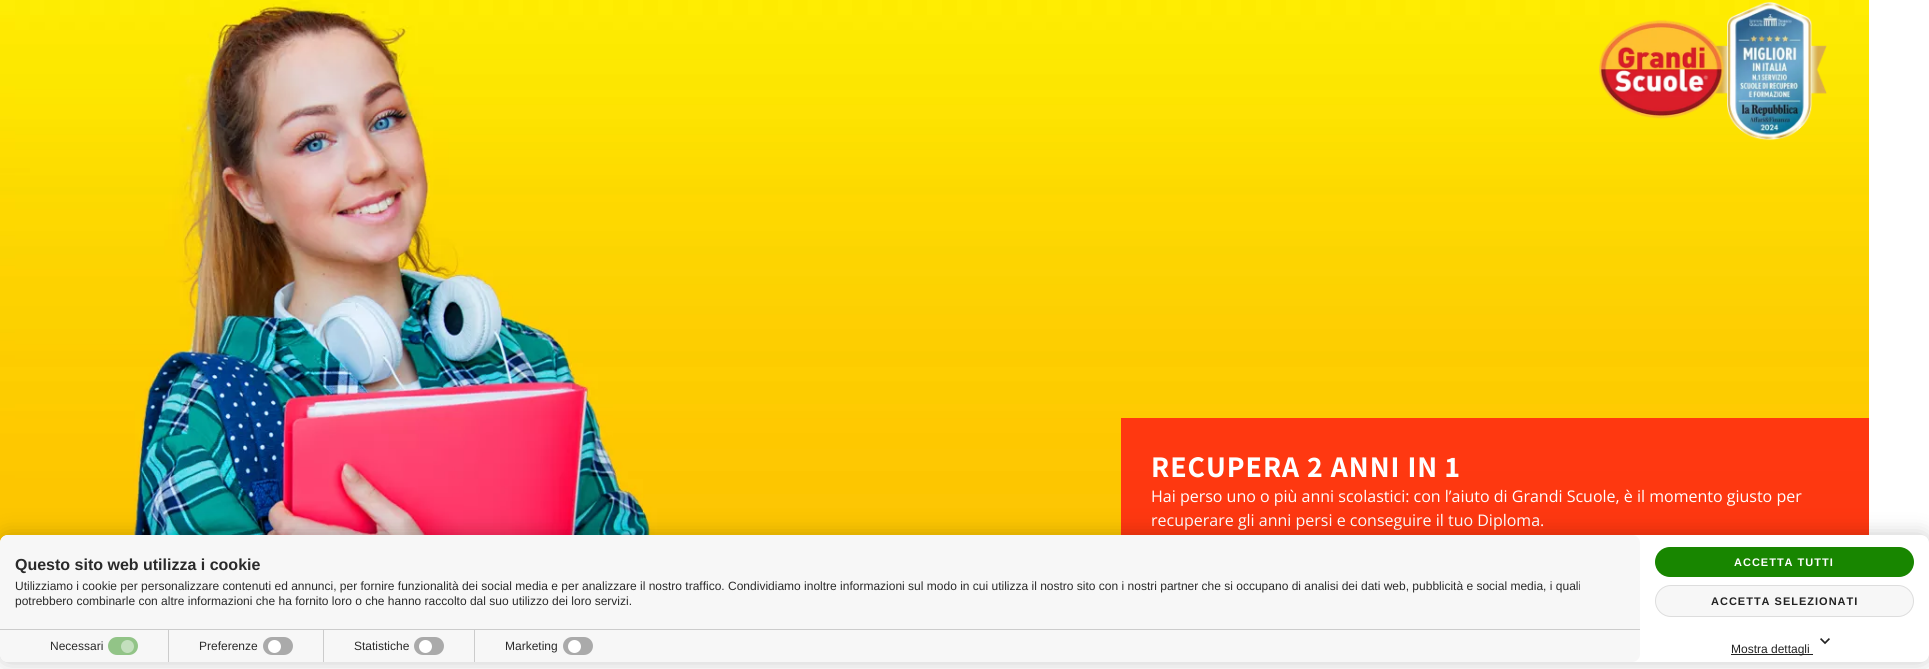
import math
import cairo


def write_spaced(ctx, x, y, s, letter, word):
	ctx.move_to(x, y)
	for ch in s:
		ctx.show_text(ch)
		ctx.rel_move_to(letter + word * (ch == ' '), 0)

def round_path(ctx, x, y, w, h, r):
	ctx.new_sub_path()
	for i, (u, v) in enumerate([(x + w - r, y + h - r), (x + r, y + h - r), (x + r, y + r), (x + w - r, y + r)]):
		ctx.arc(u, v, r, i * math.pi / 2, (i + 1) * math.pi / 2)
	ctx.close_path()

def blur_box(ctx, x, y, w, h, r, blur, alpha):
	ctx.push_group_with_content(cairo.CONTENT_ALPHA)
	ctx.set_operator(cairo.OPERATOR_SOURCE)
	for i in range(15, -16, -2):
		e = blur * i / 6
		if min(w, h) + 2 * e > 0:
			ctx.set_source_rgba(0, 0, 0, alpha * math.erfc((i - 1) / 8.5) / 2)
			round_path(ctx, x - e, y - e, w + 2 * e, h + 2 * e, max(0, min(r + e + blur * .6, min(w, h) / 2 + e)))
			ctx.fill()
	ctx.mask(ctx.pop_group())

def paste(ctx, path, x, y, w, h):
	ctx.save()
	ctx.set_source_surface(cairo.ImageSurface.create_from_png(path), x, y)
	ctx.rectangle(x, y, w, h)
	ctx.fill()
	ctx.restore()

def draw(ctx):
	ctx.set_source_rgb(1, 1, 1)
	ctx.paint()
	paste(ctx, 'media/1.png', 0, 0, 1869, 543)
	paste(ctx, 'media/2.png', 1599, 1, 228, 140)
	ctx.set_source_rgba(1, 0.035, 0.086, 0.75)
	ctx.rectangle(1121, 418, 748, 117)
	ctx.fill()
	ctx.select_font_face('Assistant', cairo.FONT_SLANT_NORMAL, cairo.FONT_WEIGHT_BOLD)
	ctx.set_font_size(30)
	ctx.set_source_rgb(1, 1, 1)
	write_spaced(ctx, 1151, 477, 'RECUPERA 2 ANNI IN 1', 1, 0)
	ctx.select_font_face('Open Sans')
	ctx.set_font_size(16)
	ctx.move_to(1151, 502)
	ctx.show_text('Hai perso uno o più anni scolastici: con l’aiuto di Grandi Scuole, è il momento giusto per')
	ctx.move_to(1151, 526)
	ctx.show_text('recuperare gli anni persi e conseguire il tuo Diploma.')
	ctx.set_source_rgb(0, 0, 0)
	blur_box(ctx, -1, 534, 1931, 129, 9, 10, 0.2)
	ctx.set_source_rgb(1, 1, 1)
	round_path(ctx, 0, 535, 1929, 127, 8)
	ctx.fill()
	ctx.set_source_rgb(0.965, 0.965, 0.965)
	ctx.new_path()
	ctx.move_to(8, 535)
	ctx.line_to(1632, 535)
	ctx.curve_to(1636.5, 535, 1640, 538.5, 1640, 543)
	ctx.line_to(1640, 629)
	ctx.line_to(0, 629)
	ctx.line_to(0, 543)
	ctx.curve_to(0, 538.5, 3.5, 535, 8, 535)
	ctx.close_path()
	ctx.fill()
	ctx.select_font_face('Liberation Sans', cairo.FONT_SLANT_NORMAL, cairo.FONT_WEIGHT_BOLD)
	ctx.set_source_rgb(0.165, 0.165, 0.165)
	ctx.move_to(15, 570)
	ctx.show_text('Questo sito web utilizza i cookie')
	ctx.select_font_face('Liberation Sans')
	ctx.set_font_size(12)
	ctx.move_to(15, 590)
	ctx.show_text('Utilizziamo i cookie per personalizzare contenuti ed annunci, per fornire funzionalità dei social media e per analizzare il nostro traffico. Condividiamo inoltre informazioni sul modo in cui utilizza il nostro sito con i nostri partner che si occupano di analisi dei dati web, pubblicità e social media, i quali')
	ctx.move_to(15, 605)
	ctx.show_text('potrebbero combinarle con altre informazioni che ha fornito loro o che hanno raccolto dal suo utilizzo dei loro servizi.')
	ctx.set_source_rgb(0.094, 0.525, 0)
	round_path(ctx, 1655, 547, 259, 30, 15)
	ctx.fill()
	ctx.select_font_face('Liberation Sans', cairo.FONT_SLANT_NORMAL, cairo.FONT_WEIGHT_BOLD)
	ctx.set_font_size(11)
	ctx.set_source_rgb(1, 1, 1)
	write_spaced(ctx, 1734, 566, 'ACCETTA TUTTI', 1, 0)
	ctx.set_source_rgb(0.965, 0.965, 0.965)
	round_path(ctx, 1655.5, 585.5, 258, 31, 15.5)
	ctx.fill_preserve()
	ctx.set_source_rgb(0.867, 0.867, 0.867)
	ctx.set_line_width(1)
	ctx.stroke()
	ctx.set_source_rgb(0.133, 0.133, 0.133)
	write_spaced(ctx, 1711, 605, 'ACCETTA SELEZIONATI', 1, 0)
	ctx.set_source_rgb(0.965, 0.965, 0.965)
	ctx.new_path()
	ctx.move_to(0, 629)
	ctx.line_to(1640, 629)
	ctx.line_to(1640, 654)
	ctx.curve_to(1640, 658.5, 1636.5, 662, 1632, 662)
	ctx.line_to(8, 662)
	ctx.curve_to(3.5, 662, 0, 658.5, 0, 654)
	ctx.close_path()
	ctx.fill()
	ctx.set_source_rgb(0.8, 0.8, 0.8)
	ctx.rectangle(0, 629, 1640, 1)
	ctx.fill()
	ctx.rectangle(168, 630, 1, 32)
	ctx.fill()
	ctx.select_font_face('Liberation Sans')
	ctx.set_font_size(12)
	ctx.set_source_rgb(0.165, 0.165, 0.165)
	ctx.move_to(50, 650)
	ctx.show_text('Necessari')
	ctx.set_source_rgb(0.573, 0.769, 0.529)
	round_path(ctx, 108, 637, 30, 18, 9)
	ctx.fill()
	ctx.set_source_rgb(0.765, 0.875, 0.741)
	ctx.arc(127.5, 646.5, 6.5, 0, 2 * math.pi)
	ctx.fill()
	ctx.set_source_rgb(0.8, 0.8, 0.8)
	ctx.rectangle(323, 630, 1, 32)
	ctx.fill()
	ctx.set_source_rgb(0.165, 0.165, 0.165)
	ctx.move_to(199, 650)
	ctx.show_text('Preferenze')
	ctx.set_source_rgb(0.667, 0.667, 0.667)
	round_path(ctx, 263, 637, 30, 18, 9)
	ctx.fill()
	ctx.set_source_rgb(1, 1, 1)
	ctx.arc(274.5, 646.5, 6.5, 0, 2 * math.pi)
	ctx.fill()
	ctx.set_source_rgb(0.8, 0.8, 0.8)
	ctx.rectangle(474, 630, 1, 32)
	ctx.fill()
	ctx.set_source_rgb(0.165, 0.165, 0.165)
	ctx.move_to(354, 650)
	ctx.show_text('Statistiche')
	ctx.set_source_rgb(0.667, 0.667, 0.667)
	round_path(ctx, 414, 637, 30, 18, 9)
	ctx.fill()
	ctx.set_source_rgb(1, 1, 1)
	ctx.arc(425.5, 646.5, 6.5, 0, 2 * math.pi)
	ctx.fill()
	ctx.set_source_rgb(0.165, 0.165, 0.165)
	ctx.move_to(505, 650)
	ctx.show_text('Marketing')
	ctx.set_source_rgb(0.667, 0.667, 0.667)
	round_path(ctx, 563, 637, 30, 18, 9)
	ctx.fill()
	ctx.set_source_rgb(1, 1, 1)
	ctx.arc(574.5, 646.5, 6.5, 0, 2 * math.pi)
	ctx.fill()
	paste(ctx, 'media/3.png', 1820, 638, 10, 7)
	ctx.set_source_rgb(0.133, 0.133, 0.133)
	ctx.rectangle(1731, 654, 82, 1)
	ctx.fill()
	ctx.move_to(1731, 653)
	ctx.show_text('Mostra dettagli')


surface = cairo.ImageSurface(cairo.FORMAT_RGB24, 1929, 669)
ctx = cairo.Context(surface)
options = cairo.FontOptions()
options.set_hint_metrics(cairo.HINT_METRICS_OFF)
options.set_hint_style(cairo.HINT_STYLE_NONE)
ctx.set_font_options(options)
ctx.set_miter_limit(4)
draw(ctx)
surface.write_to_png('image.png')
